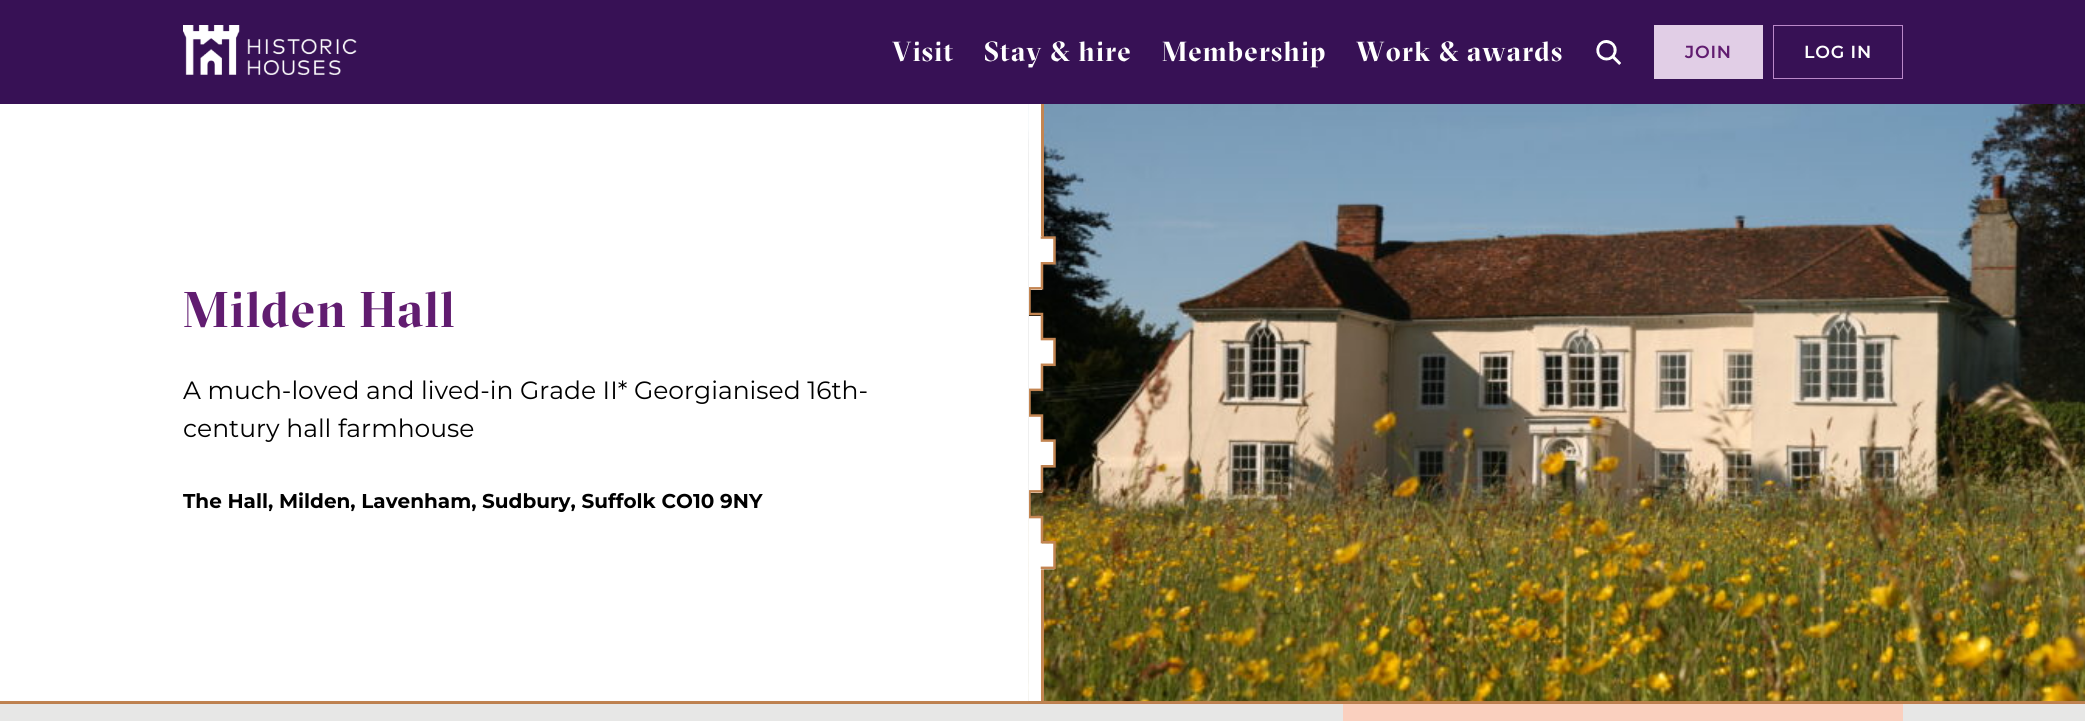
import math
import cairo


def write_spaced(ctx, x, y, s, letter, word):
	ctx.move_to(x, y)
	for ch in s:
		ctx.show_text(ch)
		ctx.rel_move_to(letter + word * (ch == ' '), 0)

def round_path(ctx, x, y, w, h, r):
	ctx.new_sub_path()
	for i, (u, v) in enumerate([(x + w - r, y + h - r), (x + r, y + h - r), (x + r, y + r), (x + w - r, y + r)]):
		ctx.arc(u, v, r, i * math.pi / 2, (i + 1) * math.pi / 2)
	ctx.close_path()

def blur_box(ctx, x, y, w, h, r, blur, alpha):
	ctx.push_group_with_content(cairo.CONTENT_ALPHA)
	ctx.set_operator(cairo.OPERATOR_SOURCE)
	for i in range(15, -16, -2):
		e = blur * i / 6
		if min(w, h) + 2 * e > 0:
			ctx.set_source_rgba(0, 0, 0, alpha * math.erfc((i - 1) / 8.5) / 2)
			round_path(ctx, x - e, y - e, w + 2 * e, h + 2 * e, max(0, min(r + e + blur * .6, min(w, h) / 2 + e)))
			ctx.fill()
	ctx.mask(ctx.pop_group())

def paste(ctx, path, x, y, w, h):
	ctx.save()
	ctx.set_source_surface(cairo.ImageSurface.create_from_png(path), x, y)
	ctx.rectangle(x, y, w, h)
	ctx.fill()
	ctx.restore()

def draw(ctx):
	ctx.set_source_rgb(1, 1, 1)
	ctx.paint()
	ctx.set_source_rgb(0.216, 0.067, 0.333)
	ctx.rectangle(0, 0, 2085, 104)
	ctx.fill()
	paste(ctx, 'media/1.png', 183, 25, 174, 50)
	ctx.select_font_face('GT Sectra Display', cairo.FONT_SLANT_NORMAL, cairo.FONT_WEIGHT_BOLD)
	ctx.set_font_size(27.5)
	ctx.set_source_rgb(1, 1, 1)
	for x, y, s in [
		(892, 61, 'Visit'),
		(984, 61, 'Stay & hire'),
		(1162, 61, 'Membership'),
		(1356, 61, 'Work & awards'),
	]:
		write_spaced(ctx, x, y, s, 1.1, 0)
	paste(ctx, 'media/2.png', 1596, 40, 25, 25)
	ctx.set_source_rgb(0.882, 0.808, 0.902)
	ctx.rectangle(1654, 25, 109, 54)
	ctx.fill()
	ctx.select_font_face('Montserrat SemiBold')
	ctx.set_font_size(17.5)
	ctx.set_source_rgb(0.38, 0.11, 0.439)
	write_spaced(ctx, 1685, 58, 'JOIN', 0.75, 0)
	ctx.rectangle(1773.5, 25.5, 129, 53)
	ctx.set_source_rgb(0.729, 0.533, 0.788)
	ctx.set_line_width(1)
	ctx.stroke()
	ctx.set_source_rgb(1, 1, 1)
	write_spaced(ctx, 1804, 58, 'LOG IN', 0.75, 0)
	ctx.set_source_rgb(0.765, 0.522, 0.322)
	ctx.rectangle(0, 701, 2085, 3)
	ctx.fill()
	ctx.select_font_face('GT Sectra Display', cairo.FONT_SLANT_NORMAL, cairo.FONT_WEIGHT_BOLD)
	ctx.set_font_size(50)
	ctx.set_source_rgb(0.38, 0.11, 0.439)
	write_spaced(ctx, 183, 327, 'Milden Hall', 1, 0)
	ctx.select_font_face('Montserrat')
	ctx.set_font_size(25)
	ctx.set_source_rgb(0, 0, 0)
	ctx.move_to(183, 399)
	ctx.show_text('A much-loved and lived-in Grade II* Georgianised 16th-')
	ctx.move_to(183, 437)
	ctx.show_text('century hall farmhouse')
	ctx.select_font_face('Montserrat', cairo.FONT_SLANT_NORMAL, cairo.FONT_WEIGHT_BOLD)
	ctx.set_font_size(20)
	ctx.move_to(183, 508)
	ctx.show_text('The Hall, Milden, Lavenham, Sudbury, Suffolk CO10 9NY')
	paste(ctx, 'media/3.png', 1028, 104, 1057, 598)
	ctx.set_source_rgb(1, 1, 1)
	ctx.rectangle(1029, 104, 12, 132)
	ctx.fill()
	ctx.set_source_rgb(0.765, 0.522, 0.322)
	ctx.rectangle(1041, 104, 3, 133)
	ctx.fill()
	ctx.set_source_rgb(1, 1, 1)
	ctx.rectangle(1029, 569, 12, 132)
	ctx.fill()
	ctx.set_source_rgb(0.765, 0.522, 0.322)
	ctx.rectangle(1041, 569, 3, 132)
	ctx.fill()
	paste(ctx, 'media/4.png', 1029, 236, 27, 334)
	ctx.set_source_rgb(0, 0, 0)
	blur_box(ctx, 0, 704, 2085, 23, 0, 2, 0.1)
	ctx.set_source_rgb(0.906, 0.906, 0.902)
	ctx.rectangle(0, 704, 2085, 17)
	ctx.fill()
	ctx.set_source_rgb(0.98, 0.816, 0.749)
	ctx.rectangle(1343, 704, 560, 17)
	ctx.fill()


surface = cairo.ImageSurface(cairo.FORMAT_RGB24, 2085, 721)
ctx = cairo.Context(surface)
options = cairo.FontOptions()
options.set_hint_metrics(cairo.HINT_METRICS_OFF)
options.set_hint_style(cairo.HINT_STYLE_NONE)
ctx.set_font_options(options)
ctx.set_miter_limit(4)
draw(ctx)
surface.write_to_png('image.png')
